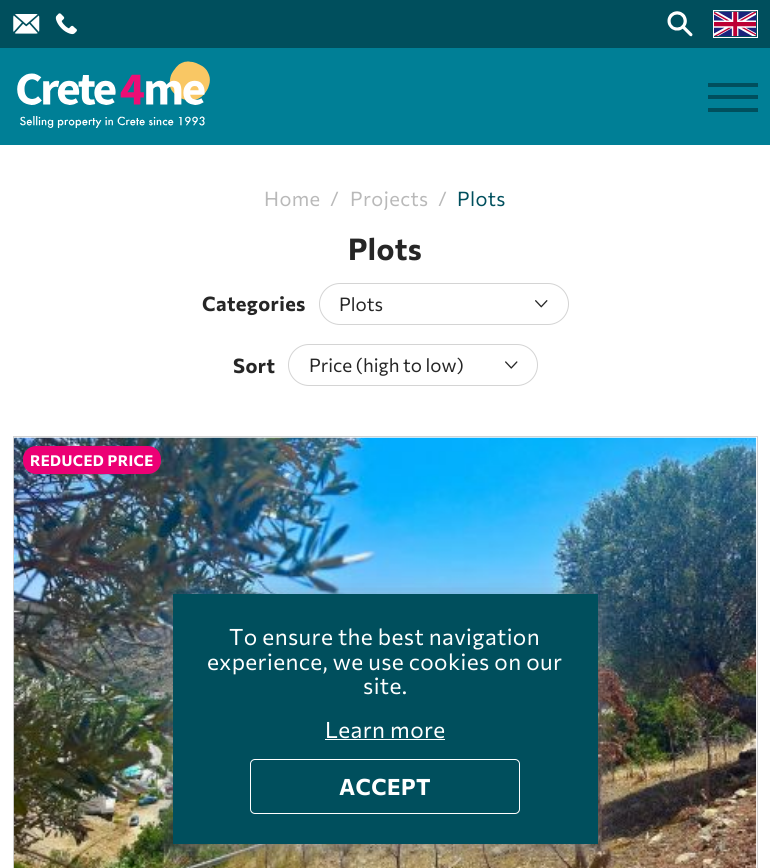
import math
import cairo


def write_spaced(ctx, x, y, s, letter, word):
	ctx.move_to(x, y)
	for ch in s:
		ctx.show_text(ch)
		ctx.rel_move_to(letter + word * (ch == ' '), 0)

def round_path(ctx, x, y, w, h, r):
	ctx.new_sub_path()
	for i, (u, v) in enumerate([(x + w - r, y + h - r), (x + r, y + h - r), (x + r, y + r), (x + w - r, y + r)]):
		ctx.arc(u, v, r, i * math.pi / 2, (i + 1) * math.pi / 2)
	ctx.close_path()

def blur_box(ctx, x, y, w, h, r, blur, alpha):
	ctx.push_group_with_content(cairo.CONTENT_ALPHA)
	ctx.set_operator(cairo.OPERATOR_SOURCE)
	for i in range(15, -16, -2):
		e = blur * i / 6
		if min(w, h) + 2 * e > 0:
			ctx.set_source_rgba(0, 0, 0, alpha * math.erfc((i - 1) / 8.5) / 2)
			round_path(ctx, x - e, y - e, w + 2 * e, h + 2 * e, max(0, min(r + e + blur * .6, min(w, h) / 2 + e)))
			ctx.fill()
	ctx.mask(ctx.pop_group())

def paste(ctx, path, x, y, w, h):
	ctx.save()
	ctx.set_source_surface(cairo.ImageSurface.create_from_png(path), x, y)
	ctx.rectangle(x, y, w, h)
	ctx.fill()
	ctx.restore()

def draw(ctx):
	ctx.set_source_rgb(1, 1, 1)
	ctx.paint()
	ctx.set_source_rgb(0, 0.498, 0.588)
	ctx.rectangle(0, 48, 770, 97)
	ctx.fill()
	ctx.set_source_rgb(0, 0.31, 0.365)
	ctx.rectangle(0, 0, 770, 48)
	ctx.fill()
	paste(ctx, 'media/1.png', 13, 14, 27, 20)
	paste(ctx, 'media/2.png', 55, 13, 22, 22)
	paste(ctx, 'media/3.png', 667, 11, 26, 26)
	ctx.rectangle(713.5, 10.5, 44, 27)
	ctx.set_source_rgb(1, 1, 1)
	ctx.set_line_width(1)
	ctx.stroke()
	paste(ctx, 'media/4.png', 714, 11, 42, 25)
	paste(ctx, 'media/5.png', 17, 61, 193, 67)
	ctx.set_source_rgb(0, 0.31, 0.365)
	ctx.rectangle(708, 83, 50, 4)
	ctx.rectangle(708, 95, 50, 4)
	ctx.rectangle(708, 108, 50, 4)
	ctx.fill()
	ctx.select_font_face('Commissioner')
	ctx.set_font_size(20)
	ctx.set_source_rgb(0.725, 0.725, 0.725)
	for x, y, s in [
		(264, 206, 'Home'),
		(330, 206, '/'),
		(350, 206, 'Projects'),
		(438, 206, '/'),
	]:
		write_spaced(ctx, x, y, s, 0.4, 0)
	ctx.set_source_rgb(0, 0.31, 0.365)
	write_spaced(ctx, 457, 206, 'Plots', 0.4, 0)
	ctx.select_font_face('Commissioner', cairo.FONT_SLANT_NORMAL, cairo.FONT_WEIGHT_BOLD)
	ctx.set_font_size(30)
	ctx.set_source_rgb(0.149, 0.149, 0.149)
	write_spaced(ctx, 348, 260, 'Plots', 0.4, 0)
	ctx.set_font_size(20)
	write_spaced(ctx, 202, 311, 'Categories', 0.4, 0)
	paste(ctx, 'media/6.png', 535, 300, 13, 8)
	round_path(ctx, 319.5, 283.5, 249, 41, 20.5)
	ctx.set_source_rgb(0.831, 0.831, 0.831)
	ctx.stroke()
	ctx.select_font_face('Commissioner')
	ctx.set_font_size(18.75)
	ctx.set_source_rgb(0.149, 0.149, 0.149)
	ctx.move_to(339, 311)
	ctx.show_text('Plots')
	ctx.select_font_face('Commissioner', cairo.FONT_SLANT_NORMAL, cairo.FONT_WEIGHT_BOLD)
	ctx.set_font_size(20)
	write_spaced(ctx, 233, 373, 'Sort', 0.4, 0)
	paste(ctx, 'media/7.png', 505, 361, 13, 8)
	round_path(ctx, 288.5, 344.5, 249, 41, 20.5)
	ctx.set_source_rgb(0.831, 0.831, 0.831)
	ctx.stroke()
	ctx.select_font_face('Commissioner')
	ctx.set_font_size(18.75)
	ctx.set_source_rgb(0.149, 0.149, 0.149)
	ctx.move_to(309, 372)
	ctx.show_text('Price (high to low)')
	ctx.rectangle(13.5, 436.5, 744, 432)
	ctx.set_source_rgb(0.827, 0.827, 0.827)
	ctx.stroke()
	paste(ctx, 'media/8.png', 13, 437, 744, 431)
	ctx.set_source_rgb(0.925, 0, 0.459)
	round_path(ctx, 23, 446, 138, 28, 13)
	ctx.fill()
	ctx.select_font_face('Commissioner', cairo.FONT_SLANT_NORMAL, cairo.FONT_WEIGHT_BOLD)
	ctx.set_font_size(15)
	ctx.set_source_rgb(1, 1, 1)
	write_spaced(ctx, 30, 466, 'REDUCED PRICE', 0.4, 0)
	ctx.set_source_rgb(0.541, 0.541, 0.541)
	blur_box(ctx, 175, 604, 420, 245, 0, 14, 0.8)
	ctx.set_source_rgb(0, 0.31, 0.365)
	ctx.rectangle(173, 594, 425, 250)
	ctx.fill()
	ctx.select_font_face('Commissioner')
	ctx.set_font_size(22.5)
	ctx.set_source_rgb(1, 1, 1)
	for x, y, s in [
		(229, 645, 'To ensure the best navigation'),
		(207, 670, 'experience, we use cookies on our'),
		(363, 694, 'site.'),
		(325, 738, 'Learn more'),
	]:
		write_spaced(ctx, x, y, s, 0.4, 0)
	ctx.rectangle(325, 739, 120, 1)
	ctx.fill()
	round_path(ctx, 250.5, 759.5, 269, 54, 4.5)
	ctx.stroke()
	ctx.select_font_face('Commissioner', cairo.FONT_SLANT_NORMAL, cairo.FONT_WEIGHT_BOLD)
	write_spaced(ctx, 339, 795, 'ACCEPT', 0.4, 0)


surface = cairo.ImageSurface(cairo.FORMAT_RGB24, 770, 868)
ctx = cairo.Context(surface)
options = cairo.FontOptions()
options.set_hint_metrics(cairo.HINT_METRICS_OFF)
options.set_hint_style(cairo.HINT_STYLE_NONE)
ctx.set_font_options(options)
ctx.set_miter_limit(4)
draw(ctx)
surface.write_to_png('image.png')
